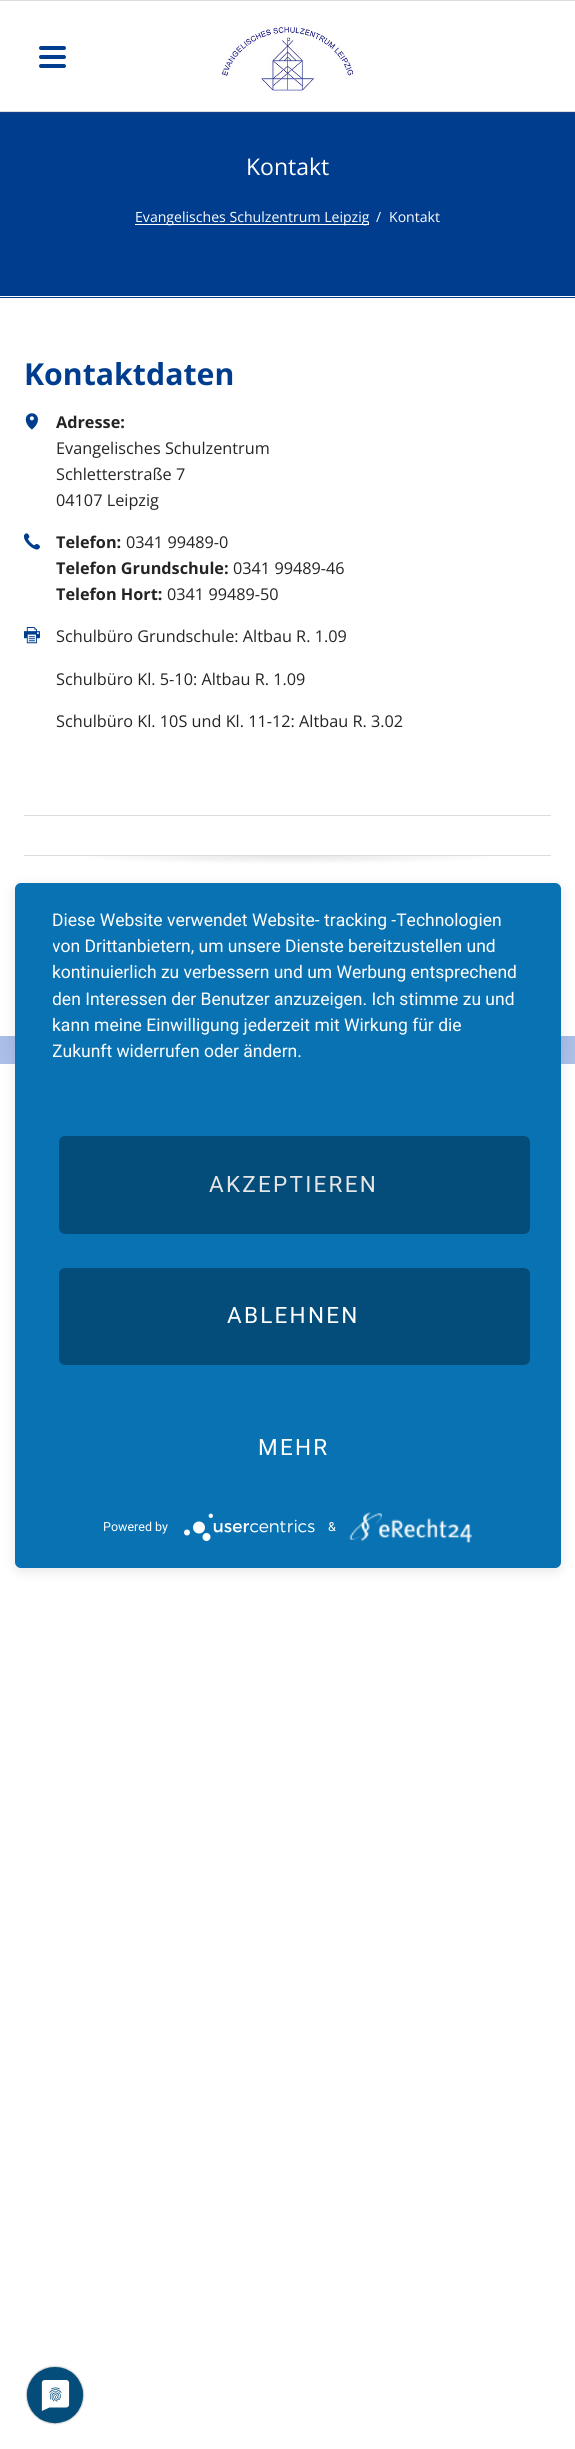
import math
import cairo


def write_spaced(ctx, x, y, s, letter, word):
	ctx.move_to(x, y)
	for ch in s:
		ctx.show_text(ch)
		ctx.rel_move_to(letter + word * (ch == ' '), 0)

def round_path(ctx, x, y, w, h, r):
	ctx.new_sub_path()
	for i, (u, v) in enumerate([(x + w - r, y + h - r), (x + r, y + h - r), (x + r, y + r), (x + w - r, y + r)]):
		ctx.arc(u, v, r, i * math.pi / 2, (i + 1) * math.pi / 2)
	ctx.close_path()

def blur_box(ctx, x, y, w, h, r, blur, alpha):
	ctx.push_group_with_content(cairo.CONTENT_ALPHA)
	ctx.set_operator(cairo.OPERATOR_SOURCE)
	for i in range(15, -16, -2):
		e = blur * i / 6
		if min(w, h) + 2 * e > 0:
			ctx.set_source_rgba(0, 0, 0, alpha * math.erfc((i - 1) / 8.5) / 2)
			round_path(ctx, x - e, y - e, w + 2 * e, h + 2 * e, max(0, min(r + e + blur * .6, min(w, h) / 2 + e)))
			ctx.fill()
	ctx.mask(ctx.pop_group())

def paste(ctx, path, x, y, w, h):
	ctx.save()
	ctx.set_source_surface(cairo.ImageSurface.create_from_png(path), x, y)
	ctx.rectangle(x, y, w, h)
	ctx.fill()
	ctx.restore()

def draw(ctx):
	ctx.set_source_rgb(1, 1, 1)
	ctx.paint()
	gradient = cairo.LinearGradient(288, 1213, 288, 0)
	gradient.add_color_stop_rgba(0, 0.729, 0.808, 0.965, 1)
	gradient.add_color_stop_rgba(0.45, 0.51, 0.604, 0.78, 1)
	gradient.add_color_stop_rgba(0.7, 0.271, 0.384, 0.604, 1)
	gradient.add_color_stop_rgba(0.9, 0.082, 0.243, 0.557, 1)
	ctx.set_source(gradient)
	ctx.rectangle(0, 112, 575, 952)
	ctx.fill()
	ctx.set_source_rgb(0.863, 0.863, 0.863)
	ctx.rectangle(0, 0, 575, 1)
	ctx.fill()
	ctx.rectangle(0, 111, 575, 1)
	ctx.fill()
	ctx.set_source_rgb(0, 0.239, 0.561)
	round_path(ctx, 39, 64, 27, 4, 2)
	ctx.fill()
	round_path(ctx, 39, 55, 27, 4, 2)
	ctx.fill()
	round_path(ctx, 39, 46, 27, 4, 2)
	ctx.fill()
	paste(ctx, 'media/1.png', 221, 26, 133, 66)
	ctx.rectangle(0, 113, 575, 185)
	ctx.fill()
	ctx.set_source_rgb(1, 1, 1)
	ctx.rectangle(0, 296, 575, 1)
	ctx.fill()
	ctx.select_font_face('Open Sans')
	ctx.set_font_size(23)
	ctx.move_to(246, 175)
	ctx.show_text('Kontakt')
	ctx.rectangle(135, 224, 234, 1)
	ctx.fill()
	ctx.set_font_size(14.1)
	for x, y, s in [
		(135, 222, 'Evangelisches Schulzentrum Leipzig'),
		(376, 222, '/'),
		(389, 222, 'Kontakt'),
	]:
		ctx.move_to(x, y)
		ctx.show_text(s)
	ctx.rectangle(0, 298, 575, 738)
	ctx.fill()
	ctx.select_font_face('Open Sans', cairo.FONT_SLANT_NORMAL, cairo.FONT_WEIGHT_BOLD)
	ctx.set_font_size(30.25)
	ctx.set_source_rgb(0, 0.239, 0.561)
	ctx.move_to(24, 385)
	ctx.show_text('Kontaktdaten')
	paste(ctx, 'media/2.png', 25, 413, 13, 17)
	ctx.set_font_size(16.25)
	ctx.set_source_rgb(0.141, 0.141, 0.141)
	ctx.move_to(56, 428)
	ctx.show_text('Adresse:')
	ctx.select_font_face('Open Sans')
	for x, y, s in [
		(56, 454, 'Evangelisches Schulzentrum'),
		(56, 480, 'Schletterstraße 7'),
		(56, 506, '04107 Leipzig'),
	]:
		ctx.move_to(x, y)
		ctx.show_text(s)
	paste(ctx, 'media/3.png', 24, 533, 16, 17)
	ctx.select_font_face('Open Sans', cairo.FONT_SLANT_NORMAL, cairo.FONT_WEIGHT_BOLD)
	ctx.move_to(56, 548)
	ctx.show_text('Telefon:')
	ctx.select_font_face('Open Sans')
	ctx.move_to(126, 548)
	ctx.show_text('0341 99489-0')
	ctx.select_font_face('Open Sans', cairo.FONT_SLANT_NORMAL, cairo.FONT_WEIGHT_BOLD)
	ctx.move_to(56, 574)
	ctx.show_text('Telefon Grundschule:')
	ctx.select_font_face('Open Sans')
	ctx.move_to(233, 574)
	ctx.show_text('0341 99489-46')
	ctx.select_font_face('Open Sans', cairo.FONT_SLANT_NORMAL, cairo.FONT_WEIGHT_BOLD)
	ctx.move_to(56, 600)
	ctx.show_text('Telefon Hort:')
	ctx.select_font_face('Open Sans')
	ctx.move_to(167, 600)
	ctx.show_text('0341 99489-50')
	paste(ctx, 'media/4.png', 24, 627, 16, 17)
	for x, y, s in [
		(56, 642, 'Schulbüro Grundschule: Altbau R. 1.09'),
		(56, 685, 'Schulbüro Kl. 5-10: Altbau R. 1.09'),
		(56, 727, 'Schulbüro Kl. 10S und Kl. 11-12: Altbau R. 3.02'),
	]:
		ctx.move_to(x, y)
		ctx.show_text(s)
	ctx.set_source_rgb(0.863, 0.863, 0.863)
	ctx.rectangle(24, 815, 527, 1)
	ctx.fill()
	gradient = cairo.RadialGradient(0, 0, 0, 0, 0, 1)
	gradient.set_matrix(cairo.Matrix(1 / 373, 0, 0, 1 / 14, -1 * 288 / 373, -1 * 856 / 14))
	gradient.add_color_stop_rgba(0, 0.902, 0.902, 0.902, 1)
	gradient.add_color_stop_rgba(0.6, 1, 1, 1, 1)
	ctx.set_source(gradient)
	ctx.rectangle(87, 856, 402, 8)
	ctx.fill()
	ctx.set_source_rgb(0.863, 0.863, 0.863)
	ctx.rectangle(24, 855, 527, 1)
	ctx.fill()
	ctx.set_source_rgb(0, 0, 0)
	blur_box(ctx, 15, 886, 546, 685, 6, 6, 0.1)
	ctx.save()
	round_path(ctx, 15, 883, 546, 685, 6)
	ctx.clip()
	blur_box(ctx, 15, 890, 546, 685, 0, 22.5, 0.3)
	ctx.restore()
	ctx.set_source_rgb(0.035, 0.447, 0.702)
	round_path(ctx, 15, 883, 546, 685, 6)
	ctx.fill()
	ctx.select_font_face('Roboto')
	ctx.set_font_size(17.5)
	ctx.set_source_rgb(1, 1, 1)
	ctx.move_to(52, 926)
	ctx.show_text('Diese Website verwendet Website- tracking -Technologien')
	ctx.save()
	ctx.rectangle(53, 908, 471, 182)
	ctx.clip()
	ctx.move_to(52, 952)
	ctx.show_text('von Drittanbietern, um unsere Dienste bereitzustellen und')
	ctx.restore()
	ctx.move_to(52, 978)
	ctx.show_text('kontinuierlich zu verbessern und um Werbung entsprechend')
	ctx.save()
	ctx.rectangle(53, 908, 471, 182)
	ctx.clip()
	ctx.move_to(52, 1005)
	ctx.show_text('den Interessen der Benutzer anzuzeigen. Ich stimme zu und')
	ctx.restore()
	ctx.move_to(52, 1031)
	ctx.show_text('kann meine Einwilligung jederzeit mit Wirkung für die')
	ctx.save()
	ctx.rectangle(53, 908, 471, 182)
	ctx.clip()
	ctx.move_to(52, 1057)
	ctx.show_text('Zukunft widerrufen oder ändern.')
	ctx.restore()
	ctx.set_source_rgb(0.016, 0.302, 0.478)
	round_path(ctx, 59, 1136, 471, 98, 6)
	ctx.fill()
	ctx.set_font_size(22.5)
	ctx.set_source_rgb(0.902, 0.902, 0.902)
	write_spaced(ctx, 209, 1192, 'AKZEPTIEREN', 2.25, 0)
	ctx.set_source_rgb(0.016, 0.302, 0.478)
	round_path(ctx, 59, 1268, 471, 97, 6)
	ctx.fill()
	ctx.set_source_rgb(1, 1, 1)
	write_spaced(ctx, 227, 1323, 'ABLEHNEN', 2.25, 0)
	write_spaced(ctx, 258, 1455, 'MEHR', 2.25, 0)
	ctx.set_font_size(12.5)
	ctx.move_to(103, 1531)
	ctx.show_text('Powered by')
	paste(ctx, 'media/5.png', 184, 1513, 131, 28)
	ctx.move_to(328, 1531)
	ctx.show_text('&')
	paste(ctx, 'media/6.png', 349, 1512, 123, 31)
	paste(ctx, 'media/7.png', 25, 2365, 60, 60)


surface = cairo.ImageSurface(cairo.FORMAT_RGB24, 575, 2449)
ctx = cairo.Context(surface)
options = cairo.FontOptions()
options.set_hint_metrics(cairo.HINT_METRICS_OFF)
options.set_hint_style(cairo.HINT_STYLE_NONE)
ctx.set_font_options(options)
ctx.set_miter_limit(4)
draw(ctx)
surface.write_to_png('image.png')
